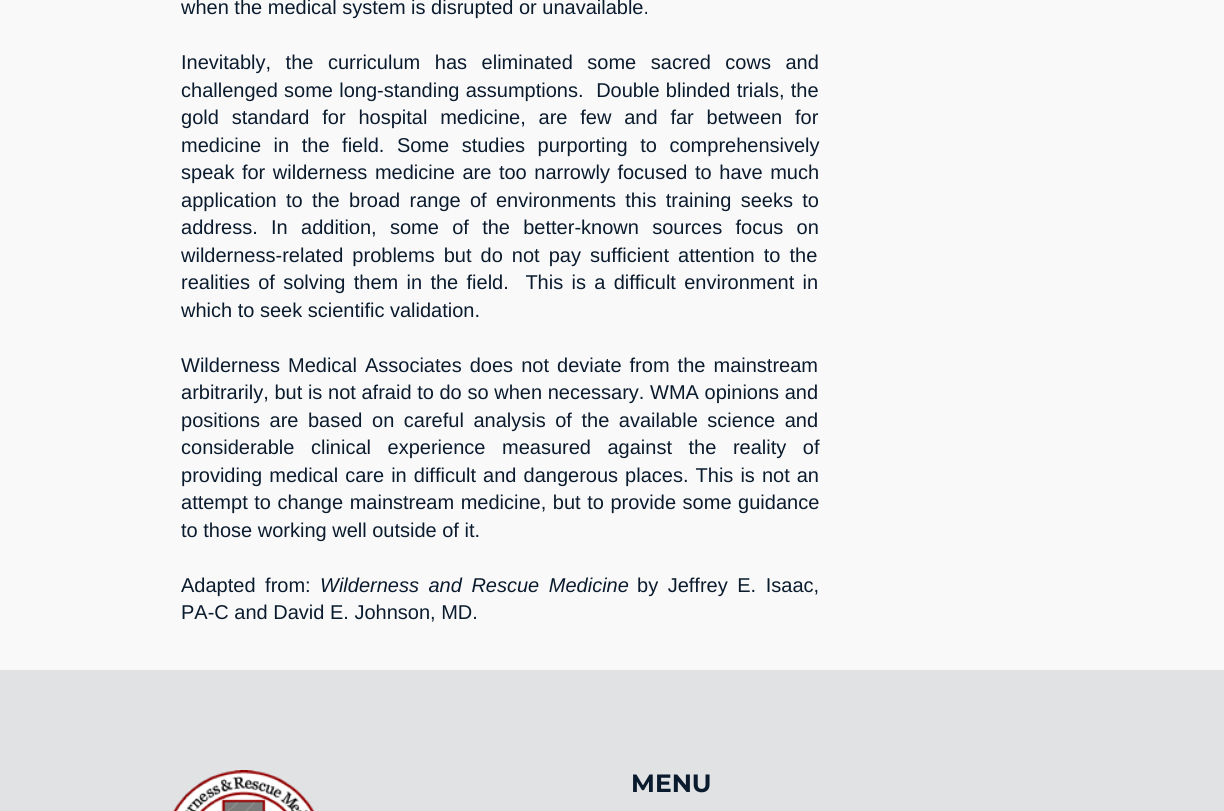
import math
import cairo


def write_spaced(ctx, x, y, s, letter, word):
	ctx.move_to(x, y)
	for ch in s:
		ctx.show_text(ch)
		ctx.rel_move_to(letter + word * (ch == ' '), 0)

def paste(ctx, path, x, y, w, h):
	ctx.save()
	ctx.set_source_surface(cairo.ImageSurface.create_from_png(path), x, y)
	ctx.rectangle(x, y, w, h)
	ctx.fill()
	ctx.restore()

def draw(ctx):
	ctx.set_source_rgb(0.973, 0.973, 0.973)
	ctx.paint()
	ctx.select_font_face('Liberation Sans')
	ctx.set_font_size(20)
	ctx.set_source_rgb(0.043, 0.106, 0.18)
	ctx.move_to(181, 14)
	ctx.show_text('when the medical system is disrupted or unavailable.')
	write_spaced(ctx, 181, 69, 'Inevitably, the curriculum has eliminated some sacred cows and', 0, 9)
	write_spaced(ctx, 181, 97, 'challenged some long-standing assumptions.  Double blinded trials, the', 0, 0.75)
	write_spaced(ctx, 181, 124, 'gold standard for hospital medicine, are few and far between for', 0, 7.25)
	write_spaced(ctx, 181, 152, 'medicine in the field. Some studies purporting to comprehensively', 0, 7)
	write_spaced(ctx, 181, 179, 'speak for wilderness medicine are too narrowly focused to have much', 0, 2)
	write_spaced(ctx, 181, 207, 'application to the broad range of environments this training seeks to', 0, 3.75)
	write_spaced(ctx, 181, 234, 'address. In addition, some of the better-known sources focus on', 0, 7.75)
	write_spaced(ctx, 181, 262, 'wilderness-related problems but do not pay sufficient attention to the', 0, 3.5)
	write_spaced(ctx, 181, 289, 'realities of solving them in the field.  This is a difficult environment in', 0, 2.75)
	ctx.move_to(181, 317)
	ctx.show_text('which to seek scientific validation.')
	write_spaced(ctx, 181, 372, 'Wilderness Medical Associates does not deviate from the mainstream', 0, 2.5)
	write_spaced(ctx, 181, 399, 'arbitrarily, but is not afraid to do so when necessary. WMA opinions and', 0, 0.1)
	write_spaced(ctx, 181, 427, 'positions are based on careful analysis of the available science and', 0, 4)
	write_spaced(ctx, 181, 454, 'considerable clinical experience measured against the reality of', 0, 11)
	write_spaced(ctx, 181, 482, 'providing medical care in difficult and dangerous places. This is not an', 0, 1.5)
	write_spaced(ctx, 181, 509, 'attempt to change mainstream medicine, but to provide some guidance', 0, 1)
	ctx.move_to(181, 537)
	ctx.show_text('to those working well outside of it.')
	write_spaced(ctx, 181, 592, 'Adapted from:', 0, 4)
	ctx.select_font_face('Liberation Sans', cairo.FONT_SLANT_ITALIC)
	write_spaced(ctx, 320, 592, 'Wilderness and Rescue Medicine', 0, 4)
	ctx.select_font_face('Liberation Sans')
	write_spaced(ctx, 637, 592, 'by Jeffrey E. Isaac,', 0, 4)
	ctx.move_to(181, 619)
	ctx.show_text('PA-C and David E. Johnson, MD.')
	ctx.set_source_rgb(0.878, 0.886, 0.894)
	ctx.rectangle(0, 670, 1224, 141)
	ctx.fill()
	paste(ctx, 'media/1.png', 173, 770, 141, 41)
	ctx.select_font_face('Montserrat', cairo.FONT_SLANT_NORMAL, cairo.FONT_WEIGHT_BOLD)
	ctx.set_font_size(25)
	ctx.set_source_rgb(0.043, 0.106, 0.18)
	ctx.move_to(631, 792)
	ctx.show_text('MENU')


surface = cairo.ImageSurface(cairo.FORMAT_RGB24, 1224, 811)
ctx = cairo.Context(surface)
options = cairo.FontOptions()
options.set_hint_metrics(cairo.HINT_METRICS_OFF)
options.set_hint_style(cairo.HINT_STYLE_NONE)
ctx.set_font_options(options)
ctx.set_miter_limit(4)
draw(ctx)
surface.write_to_png('image.png')
